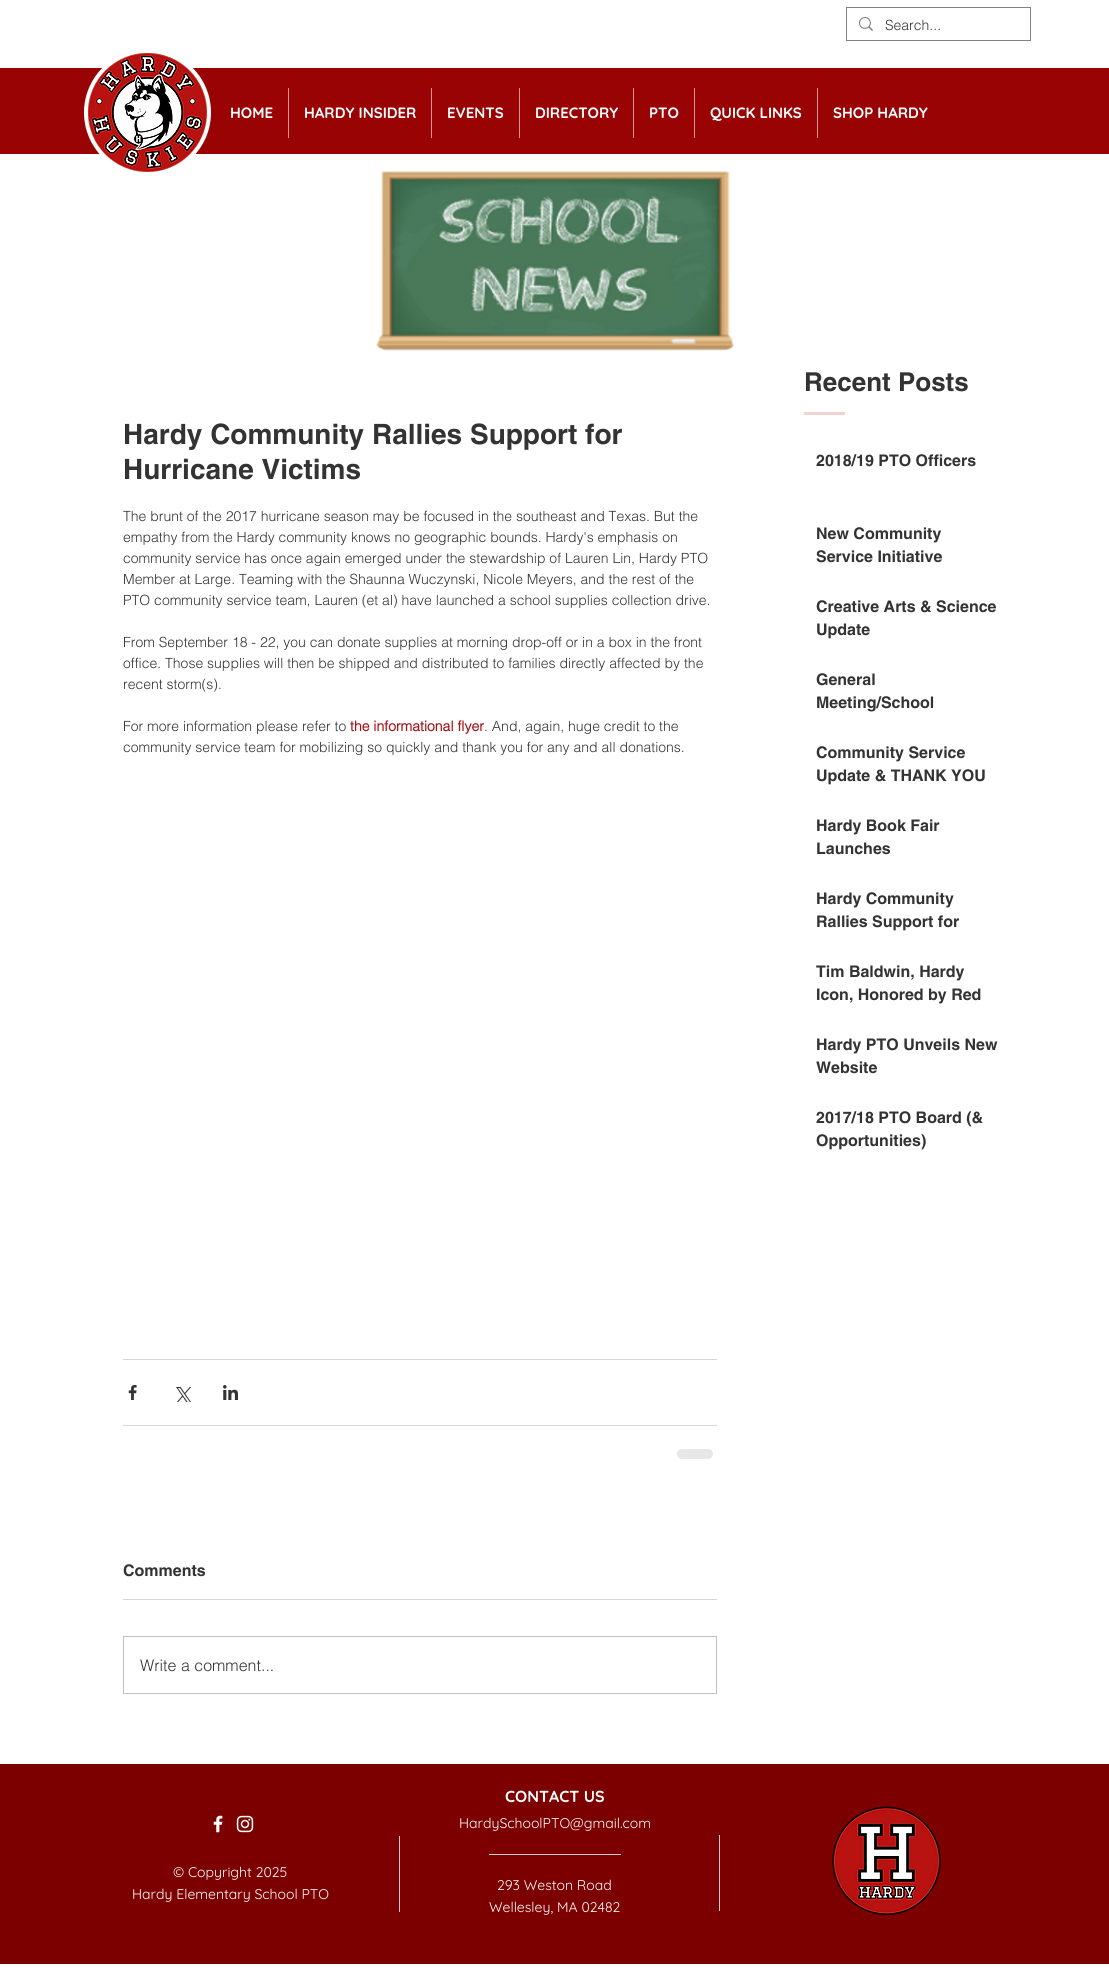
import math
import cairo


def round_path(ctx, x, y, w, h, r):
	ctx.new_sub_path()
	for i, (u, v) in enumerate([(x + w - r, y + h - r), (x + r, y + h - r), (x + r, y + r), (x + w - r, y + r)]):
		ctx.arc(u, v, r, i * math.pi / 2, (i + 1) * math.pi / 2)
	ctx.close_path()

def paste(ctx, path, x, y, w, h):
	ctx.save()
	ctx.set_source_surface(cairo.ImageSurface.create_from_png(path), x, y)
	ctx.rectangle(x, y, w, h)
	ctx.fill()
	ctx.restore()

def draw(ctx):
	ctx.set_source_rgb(1, 1, 1)
	ctx.paint()
	ctx.rectangle(846.5, 7.5, 184, 33)
	ctx.set_source_rgb(0.51, 0.51, 0.51)
	ctx.set_line_width(1)
	ctx.stroke()
	paste(ctx, 'media/1.png', 859, 17, 14, 14)
	ctx.select_font_face('helvetica Light')
	ctx.set_font_size(14)
	ctx.set_source_rgb(0.2, 0.2, 0.2)
	ctx.move_to(885, 30)
	ctx.show_text('Search...')
	ctx.set_source_rgb(0.6, 0.012, 0.012)
	ctx.rectangle(0, 68, 1109, 86)
	ctx.fill()
	paste(ctx, 'media/2.png', 88, 53, 119, 119)
	ctx.new_path()
	ctx.move_to(209, 112.5)
	ctx.curve_to(209, 146.5, 181.5, 174, 147.5, 174)
	ctx.curve_to(113.5, 174, 86, 146.5, 86, 112.5)
	ctx.curve_to(86, 78.5, 113.5, 51, 147.5, 51)
	ctx.curve_to(181.5, 51, 209, 78.5, 209, 112.5)
	ctx.close_path()
	ctx.set_source_rgb(1, 1, 1)
	ctx.set_line_width(4)
	ctx.stroke()
	ctx.select_font_face('Quicksand', cairo.FONT_SLANT_NORMAL, cairo.FONT_WEIGHT_BOLD)
	ctx.set_font_size(15)
	ctx.move_to(230, 118)
	ctx.show_text('HOME')
	ctx.set_source_rgb(0.827, 0.576, 0.576)
	ctx.rectangle(288, 88, 1, 50)
	ctx.fill()
	ctx.set_source_rgb(1, 1, 1)
	ctx.move_to(304, 118)
	ctx.show_text('HARDY INSIDER')
	ctx.set_source_rgb(0.827, 0.576, 0.576)
	ctx.rectangle(431, 88, 1, 50)
	ctx.fill()
	ctx.set_source_rgb(1, 1, 1)
	ctx.move_to(447, 118)
	ctx.show_text('EVENTS')
	ctx.set_source_rgb(0.827, 0.576, 0.576)
	ctx.rectangle(519, 88, 1, 50)
	ctx.fill()
	ctx.set_source_rgb(1, 1, 1)
	ctx.move_to(535, 118)
	ctx.show_text('DIRECTORY')
	ctx.set_source_rgb(0.827, 0.576, 0.576)
	ctx.rectangle(633, 88, 1, 50)
	ctx.fill()
	ctx.set_source_rgb(1, 1, 1)
	ctx.move_to(649, 118)
	ctx.show_text('PTO')
	ctx.set_source_rgb(0.827, 0.576, 0.576)
	ctx.rectangle(694, 88, 1, 50)
	ctx.fill()
	ctx.set_source_rgb(1, 1, 1)
	ctx.move_to(710, 118)
	ctx.show_text('QUICK LINKS')
	ctx.set_source_rgb(0.827, 0.576, 0.576)
	ctx.rectangle(817, 88, 1, 50)
	ctx.fill()
	ctx.set_source_rgb(1, 1, 1)
	ctx.move_to(833, 118)
	ctx.show_text('SHOP HARDY')
	paste(ctx, 'media/3.png', 375, 171, 359, 180)
	ctx.select_font_face('helvetica', cairo.FONT_SLANT_NORMAL, cairo.FONT_WEIGHT_BOLD)
	ctx.set_font_size(28)
	ctx.set_source_rgb(0.2, 0.2, 0.2)
	ctx.move_to(123, 444)
	ctx.show_text('Hardy Community Rallies Support for')
	ctx.move_to(123, 479)
	ctx.show_text('Hurricane Victims')
	ctx.select_font_face('helvetica Light')
	ctx.set_font_size(14)
	for x, y, s in [
		(123, 521, 'The brunt of the 2017 hurricane season may be focused in the southeast and Texas. But the'),
		(123, 542, 'empathy from the Hardy community knows no geographic bounds. Hardy\'s emphasis on'),
		(123, 563, 'community service has once again emerged under the stewardship of Lauren Lin, Hardy PTO'),
		(123, 584, 'Member at Large. Teaming with the Shaunna Wuczynski, Nicole Meyers, and the rest of the'),
		(123, 605, 'PTO community service team, Lauren (et al) have launched a school supplies collection drive.'),
		(123, 647, 'From September 18 - 22, you can donate supplies at morning drop-off or in a box in the front'),
		(123, 668, 'office. Those supplies will then be shipped and distributed to families directly affected by the'),
		(123, 689, 'recent storm(s).'),
		(123, 731, 'For more information please refer to'),
	]:
		ctx.move_to(x, y)
		ctx.show_text(s)
	ctx.select_font_face('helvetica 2', cairo.FONT_SLANT_NORMAL, cairo.FONT_WEIGHT_BOLD)
	ctx.set_source_rgb(0.651, 0.067, 0.086)
	ctx.move_to(350, 731)
	ctx.show_text('the informational flyer')
	ctx.select_font_face('helvetica Light')
	ctx.set_source_rgb(0.2, 0.2, 0.2)
	ctx.move_to(484, 731)
	ctx.show_text('. And, again, huge credit to the')
	ctx.move_to(123, 752)
	ctx.show_text('community service team for mobilizing so quickly and thank you for any and all donations.')
	ctx.set_source_rgb(0.839, 0.839, 0.839)
	ctx.rectangle(123, 1359, 594, 1)
	ctx.fill()
	paste(ctx, 'media/4.png', 128, 1385, 9, 15)
	paste(ctx, 'media/5.png', 176, 1387, 15, 15)
	paste(ctx, 'media/6.png', 223, 1385, 15, 15)
	ctx.rectangle(123, 1425, 594, 1)
	ctx.fill()
	ctx.set_source_rgb(0.906, 0.906, 0.906)
	round_path(ctx, 677, 1449, 36, 10, 5)
	ctx.fill()
	ctx.select_font_face('helvetica', cairo.FONT_SLANT_NORMAL, cairo.FONT_WEIGHT_BOLD)
	ctx.set_font_size(16)
	ctx.set_source_rgb(0.2, 0.2, 0.2)
	ctx.move_to(123, 1576)
	ctx.show_text('Comments')
	ctx.set_source_rgb(0.839, 0.839, 0.839)
	ctx.rectangle(123, 1599, 594, 1)
	ctx.fill()
	ctx.rectangle(123.5, 1636.5, 593, 57)
	ctx.set_source_rgb(0.757, 0.753, 0.753)
	ctx.set_line_width(1)
	ctx.stroke()
	ctx.select_font_face('helvetica Light')
	ctx.set_source_rgb(0.2, 0.2, 0.2)
	ctx.move_to(140, 1671)
	ctx.show_text('Write a comment...')
	ctx.select_font_face('helvetica', cairo.FONT_SLANT_NORMAL, cairo.FONT_WEIGHT_BOLD)
	ctx.set_font_size(26)
	ctx.move_to(804, 391)
	ctx.show_text('Recent Posts')
	ctx.set_source_rgb(0.949, 0.824, 0.824)
	ctx.rectangle(804, 412, 41, 3)
	ctx.fill()
	ctx.set_font_size(16)
	ctx.set_source_rgb(0.2, 0.2, 0.2)
	for x, y, s in [
		(816, 466, '2018/19 PTO Officers'),
		(816, 539, 'New Community'),
		(816, 562, 'Service Initiative'),
		(816, 612, 'Creative Arts & Science'),
		(816, 635, 'Update'),
		(816, 685, 'General'),
		(816, 708, 'Meeting/School'),
		(816, 758, 'Community Service'),
		(816, 781, 'Update & THANK YOU'),
		(816, 831, 'Hardy Book Fair'),
		(816, 854, 'Launches'),
		(816, 904, 'Hardy Community'),
		(816, 927, 'Rallies Support for'),
	]:
		ctx.move_to(x, y)
		ctx.show_text(s)
	ctx.save()
	ctx.rectangle(816, 961, 182, 56)
	ctx.clip()
	ctx.move_to(816, 977)
	ctx.show_text('Tim Baldwin, Hardy')
	ctx.restore()
	for x, y, s in [
		(816, 1000, 'Icon, Honored by Red'),
		(816, 1050, 'Hardy PTO Unveils New'),
		(816, 1073, 'Website'),
		(816, 1123, '2017/18 PTO Board (&'),
		(816, 1146, 'Opportunities)'),
	]:
		ctx.move_to(x, y)
		ctx.show_text(s)
	ctx.set_source_rgb(0.49, 0, 0)
	ctx.rectangle(0, 1764, 1109, 200)
	ctx.fill()
	ctx.select_font_face('Quicksand', cairo.FONT_SLANT_NORMAL, cairo.FONT_WEIGHT_BOLD)
	ctx.set_source_rgb(1, 1, 1)
	ctx.move_to(505, 1802)
	ctx.show_text('CONTACT US')
	paste(ctx, 'media/7.png', 213, 1815, 10, 18)
	paste(ctx, 'media/8.png', 236, 1815, 18, 18)
	ctx.select_font_face('Quicksand')
	ctx.set_font_size(14)
	ctx.move_to(459, 1828)
	ctx.show_text('HardySchoolPTO@gmail.com')
	paste(ctx, 'media/9.png', 832, 1806, 109, 110)
	ctx.set_source_rgb(0.8, 0.8, 0.8)
	ctx.rectangle(399, 1836, 1, 76)
	ctx.rectangle(489, 1854, 132, 1)
	ctx.rectangle(719, 1835, 1, 76)
	ctx.fill()
	ctx.set_source_rgb(1, 1, 1)
	for x, y, s in [
		(173, 1877, '© Copyright 2025'),
		(132, 1899, 'Hardy Elementary School PTO'),
		(497, 1890, '293 Weston Road'),
		(489, 1912, 'Wellesley, MA 02482'),
	]:
		ctx.move_to(x, y)
		ctx.show_text(s)


surface = cairo.ImageSurface(cairo.FORMAT_RGB24, 1109, 1988)
ctx = cairo.Context(surface)
options = cairo.FontOptions()
options.set_hint_metrics(cairo.HINT_METRICS_OFF)
options.set_hint_style(cairo.HINT_STYLE_NONE)
ctx.set_font_options(options)
ctx.set_miter_limit(4)
draw(ctx)
surface.write_to_png('image.png')
